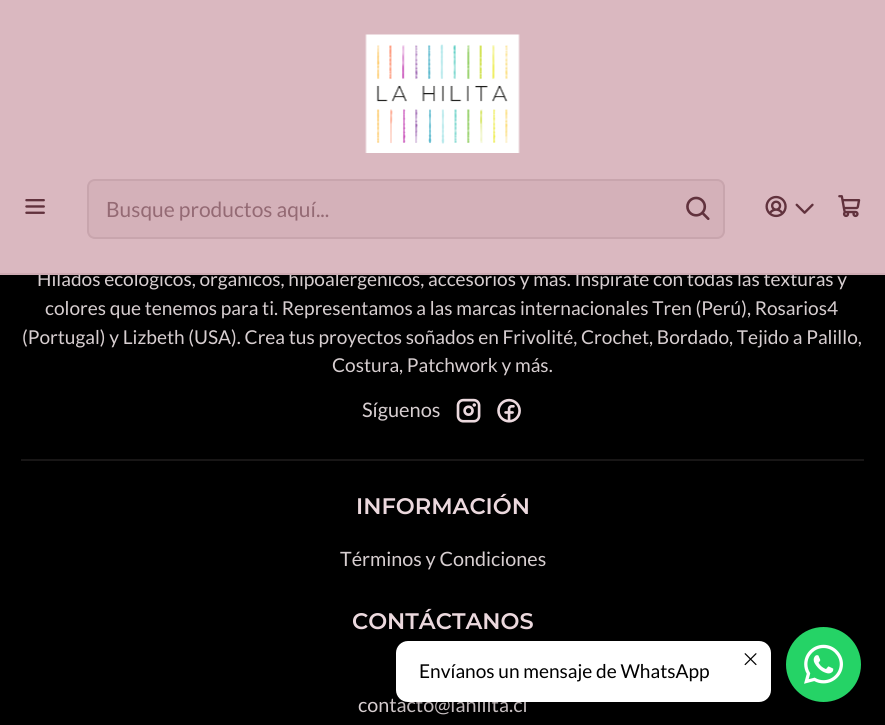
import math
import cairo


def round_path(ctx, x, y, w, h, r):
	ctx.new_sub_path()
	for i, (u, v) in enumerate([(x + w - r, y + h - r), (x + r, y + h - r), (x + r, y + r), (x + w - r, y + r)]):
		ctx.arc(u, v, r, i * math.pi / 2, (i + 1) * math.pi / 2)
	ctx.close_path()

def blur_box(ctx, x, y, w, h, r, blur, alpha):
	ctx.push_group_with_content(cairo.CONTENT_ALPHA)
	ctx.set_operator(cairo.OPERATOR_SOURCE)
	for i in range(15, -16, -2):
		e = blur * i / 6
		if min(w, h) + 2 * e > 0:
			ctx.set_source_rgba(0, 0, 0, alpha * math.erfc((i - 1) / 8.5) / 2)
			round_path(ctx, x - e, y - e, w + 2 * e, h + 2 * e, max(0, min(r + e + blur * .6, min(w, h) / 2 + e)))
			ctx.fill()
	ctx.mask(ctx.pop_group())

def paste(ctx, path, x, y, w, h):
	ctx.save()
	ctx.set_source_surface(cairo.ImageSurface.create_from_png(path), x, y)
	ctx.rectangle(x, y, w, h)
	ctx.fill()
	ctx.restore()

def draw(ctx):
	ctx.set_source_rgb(0, 0, 0)
	ctx.paint()
	ctx.select_font_face('Lato')
	ctx.set_font_size(19.1)
	ctx.set_source_rgb(0.843, 0.808, 0.816)
	ctx.move_to(37, 286)
	ctx.show_text('Hilados ecológicos, orgánicos, hipoalergénicos, accesorios y más. Inspírate con todas las texturas y')
	ctx.set_source_rgb(0.855, 0.722, 0.753)
	ctx.rectangle(0, 0, 885, 273)
	ctx.fill()
	ctx.set_source_rgb(0.808, 0.671, 0.702)
	ctx.rectangle(0, 273, 885, 2)
	ctx.fill()
	paste(ctx, 'media/1.png', 365, 34, 155, 119)
	paste(ctx, 'media/2.png', 25, 199, 20, 15)
	ctx.set_source_rgb(0.831, 0.694, 0.725)
	round_path(ctx, 87, 179, 638, 60, 8)
	ctx.fill()
	round_path(ctx, 88, 180, 636, 58, 7)
	ctx.set_source_rgba(0.38, 0.196, 0.239, 0.1)
	ctx.stroke()
	ctx.set_font_size(21)
	ctx.set_source_rgb(0.58, 0.416, 0.455)
	ctx.move_to(106, 217)
	ctx.show_text('Busque productos aquí...')
	paste(ctx, 'media/3.png', 686, 196, 24, 24)
	paste(ctx, 'media/4.png', 765, 195, 22, 23)
	paste(ctx, 'media/5.png', 795, 203, 19, 11)
	paste(ctx, 'media/6.png', 838, 195, 23, 23)
	ctx.set_font_size(19.1)
	ctx.set_source_rgb(0.843, 0.808, 0.816)
	for x, y, s in [
		(45, 315, 'colores que tenemos para ti. Representamos a las marcas internacionales Tren (Perú), Rosarios4'),
		(22, 344, '(Portugal) y Lizbeth (USA). Crea tus proyectos soñados en Frivolité, Crochet, Bordado, Tejido a Palillo,'),
		(332, 372, 'Costura, Patchwork y más.'),
	]:
		ctx.move_to(x, y)
		ctx.show_text(s)
	ctx.set_font_size(20)
	ctx.move_to(362, 417)
	ctx.show_text('Síguenos')
	paste(ctx, 'media/7.png', 456, 398, 25, 25)
	paste(ctx, 'media/8.png', 497, 398, 24, 25)
	ctx.set_source_rgb(0.094, 0.086, 0.086)
	ctx.rectangle(21, 459, 843, 2)
	ctx.fill()
	ctx.select_font_face('Montserrat SemiBold')
	ctx.set_font_size(22.5)
	ctx.set_source_rgb(0.925, 0.851, 0.871)
	ctx.move_to(356, 514)
	ctx.show_text('INFORMACIÓN')
	ctx.select_font_face('Lato')
	ctx.set_font_size(19.75)
	ctx.set_source_rgb(0.843, 0.808, 0.816)
	ctx.move_to(340, 566)
	ctx.show_text('Términos y Condiciones')
	ctx.select_font_face('Montserrat SemiBold')
	ctx.set_font_size(22.5)
	ctx.set_source_rgb(0.925, 0.851, 0.871)
	ctx.move_to(352, 629)
	ctx.show_text('CONTÁCTANOS')
	ctx.select_font_face('Lato')
	ctx.set_font_size(19.75)
	ctx.set_source_rgb(0.843, 0.808, 0.816)
	ctx.move_to(358, 712)
	ctx.show_text('contacto@lahilita.cl')
	ctx.set_source_rgb(0, 0, 0)
	blur_box(ctx, 396, 647, 375, 61, 12, 11, 0.2)
	ctx.set_source_rgb(1, 1, 1)
	round_path(ctx, 396, 641, 375, 61, 12)
	ctx.fill()
	paste(ctx, 'media/9.png', 744, 653, 13, 13)
	ctx.set_font_size(19.1)
	ctx.set_source_rgb(0, 0, 0)
	ctx.move_to(419, 678)
	ctx.show_text('Envíanos un mensaje de WhatsApp')
	ctx.set_source_rgb(0.145, 0.827, 0.4)
	ctx.new_path()
	ctx.arc(823.5, 664.5, 37.5, 0, 2 * math.pi)
	ctx.fill()
	paste(ctx, 'media/10.png', 804, 644, 39, 40)


surface = cairo.ImageSurface(cairo.FORMAT_RGB24, 885, 725)
ctx = cairo.Context(surface)
options = cairo.FontOptions()
options.set_hint_metrics(cairo.HINT_METRICS_OFF)
options.set_hint_style(cairo.HINT_STYLE_NONE)
ctx.set_font_options(options)
ctx.set_miter_limit(4)
draw(ctx)
surface.write_to_png('image.png')
